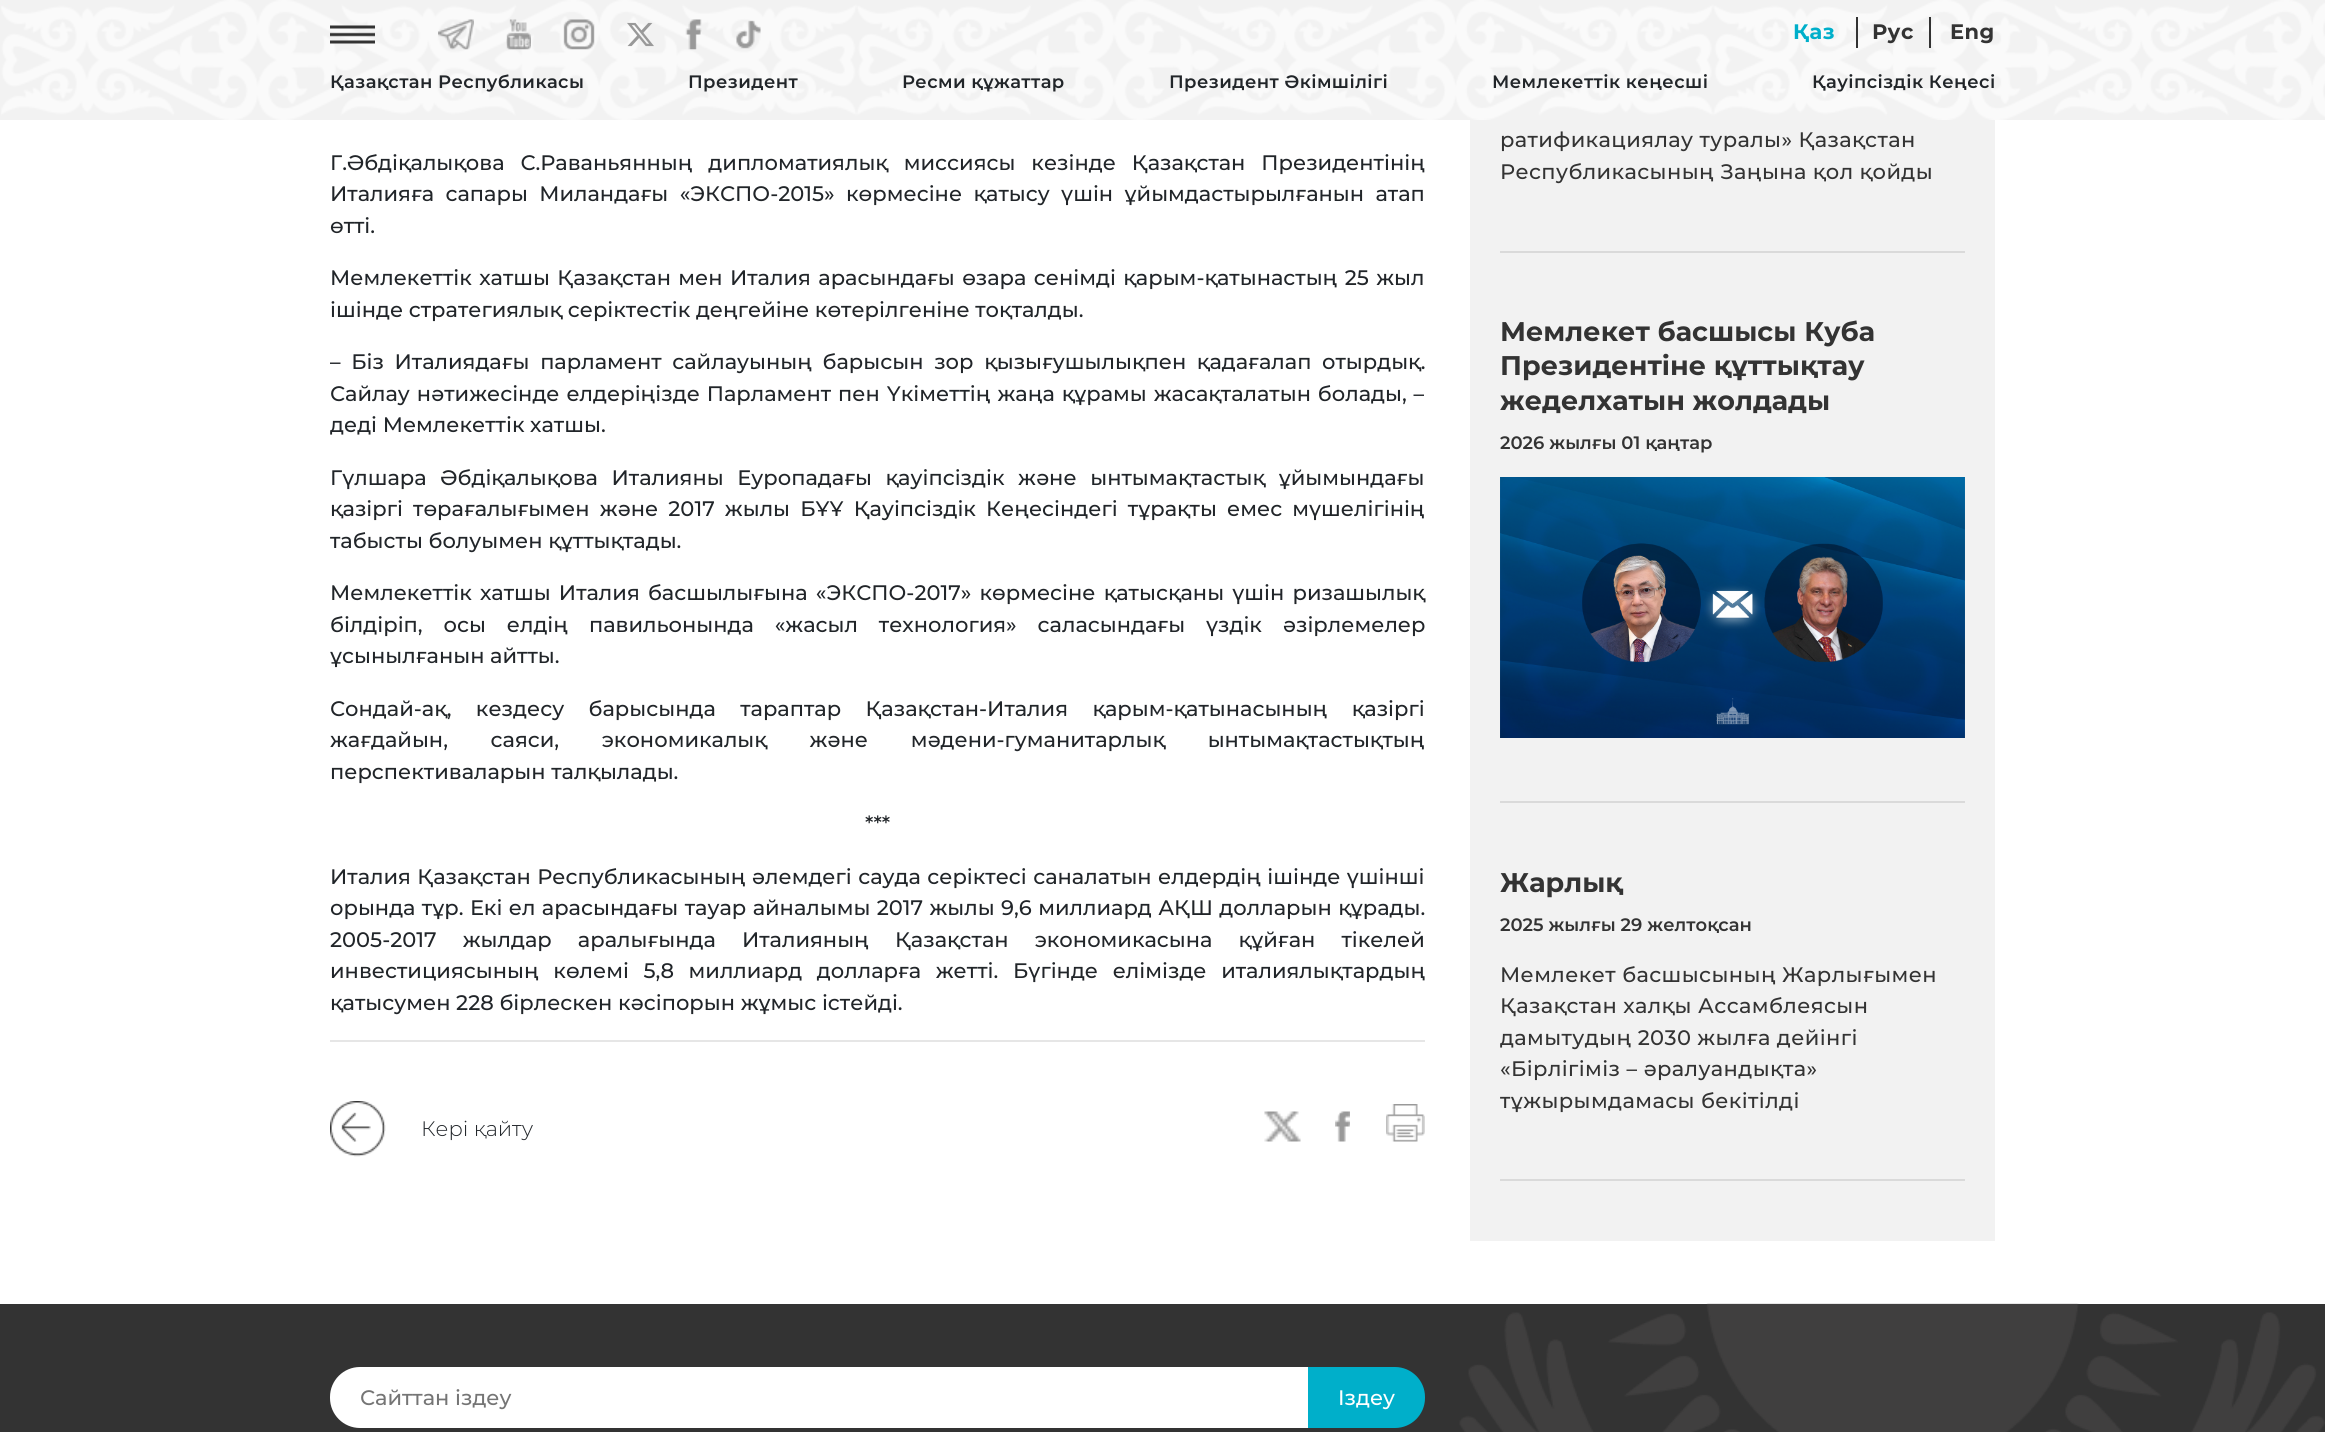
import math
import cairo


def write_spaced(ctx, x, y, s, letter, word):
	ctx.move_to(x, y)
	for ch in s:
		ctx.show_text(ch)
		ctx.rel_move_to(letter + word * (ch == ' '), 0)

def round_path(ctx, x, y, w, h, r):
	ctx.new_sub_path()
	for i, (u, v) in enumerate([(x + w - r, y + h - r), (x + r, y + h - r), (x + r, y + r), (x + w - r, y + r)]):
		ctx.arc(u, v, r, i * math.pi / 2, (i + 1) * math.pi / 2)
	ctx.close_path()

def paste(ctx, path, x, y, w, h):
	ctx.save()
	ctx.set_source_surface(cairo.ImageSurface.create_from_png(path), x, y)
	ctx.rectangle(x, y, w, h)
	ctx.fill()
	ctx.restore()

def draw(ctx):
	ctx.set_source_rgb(1, 1, 1)
	ctx.paint()
	ctx.set_source_rgb(0.949, 0.949, 0.949)
	ctx.rectangle(0, 0, 2325, 120)
	ctx.fill()
	paste(ctx, 'media/1.png', 1, 0, 2324, 120)
	paste(ctx, 'media/2.png', 330, 25, 45, 19)
	paste(ctx, 'media/3.png', 438, 19, 36, 31)
	paste(ctx, 'media/4.png', 506, 19, 25, 31)
	paste(ctx, 'media/5.png', 563, 19, 32, 31)
	paste(ctx, 'media/6.png', 627, 22, 27, 25)
	paste(ctx, 'media/7.png', 685, 19, 17, 31)
	paste(ctx, 'media/8.png', 736, 20, 25, 29)
	ctx.select_font_face('Montserrat', cairo.FONT_SLANT_NORMAL, cairo.FONT_WEIGHT_BOLD)
	ctx.set_font_size(21)
	ctx.set_source_rgb(0, 0.686, 0.792)
	write_spaced(ctx, 1793, 39, 'Қаз', 0.4, 0)
	ctx.set_source_rgb(0.2, 0.2, 0.2)
	ctx.rectangle(1929, 17, 2, 31)
	ctx.fill()
	ctx.rectangle(1856, 17, 2, 31)
	ctx.fill()
	write_spaced(ctx, 1872, 39, 'Рус', 0.4, 0)
	write_spaced(ctx, 1950, 39, 'Eng', 0.4, 0)
	ctx.select_font_face('Montserrat SemiBold')
	ctx.set_font_size(18)
	ctx.set_source_rgb(0.129, 0.145, 0.161)
	for x, y, s in [
		(330, 88, 'Қазақстан Республикасы'),
		(688, 88, 'Президент'),
		(902, 88, 'Ресми құжаттар'),
		(1169, 88, 'Президент Әкімшілігі'),
		(1492, 88, 'Мемлекеттік кеңесші'),
		(1812, 88, 'Қауіпсіздік Кеңесі'),
	]:
		write_spaced(ctx, x, y, s, 0.4, 0)
	ctx.select_font_face('Montserrat Medium')
	ctx.set_font_size(21)
	write_spaced(ctx, 330, 170, 'Г.Әбдіқалықова С.Раваньянның дипломатиялық миссиясы кезінде Қазақстан Президентінің', 0, 10.25)
	write_spaced(ctx, 330, 201, 'Италияға сапары Миландағы «ЭКСПО-2015» көрмесіне қатысу үшін ұйымдастырылғанын атап', 0, 5.75)
	ctx.move_to(330, 233)
	ctx.show_text('өтті.')
	write_spaced(ctx, 330, 285, 'Мемлекеттік хатшы Қазақстан мен Италия арасындағы өзара сенімді қарым-қатынастың 25 жыл', 0, 1.75)
	ctx.move_to(330, 317)
	ctx.show_text('ішінде стратегиялық серіктестік деңгейіне көтерілгеніне тоқталды.')
	write_spaced(ctx, 330, 369, '– Біз Италиядағы парламент сайлауының барысын зор қызығушылықпен қадағалап отырдық.', 0, 5)
	write_spaced(ctx, 330, 401, 'Сайлау нәтижесінде елдеріңізде Парламент пен Үкіметтің жаңа құрамы жасақталатын болады, –', 0, 1.25)
	ctx.move_to(330, 432)
	ctx.show_text('деді Мемлекеттік хатшы.')
	write_spaced(ctx, 330, 485, 'Гүлшара Әбдіқалықова Италияны Еуропадағы қауіпсіздік және ынтымақтастық ұйымындағы', 0, 8)
	write_spaced(ctx, 330, 516, 'қазіргі төрағалығымен және 2017 жылы БҰҰ Қауіпсіздік Кеңесіндегі тұрақты емес мүшелігінің', 0, 4.5)
	ctx.move_to(330, 548)
	ctx.show_text('табысты болуымен құттықтады.')
	write_spaced(ctx, 330, 600, 'Мемлекеттік хатшы Италия басшылығына «ЭКСПО-2017» көрмесіне қатысқаны үшін ризашылық', 0, 2.5)
	write_spaced(ctx, 330, 632, 'білдіріп, осы елдің павильонында «жасыл технология» саласындағы үздік әзірлемелер', 0, 15.25)
	ctx.move_to(330, 663)
	ctx.show_text('ұсынылғанын айтты.')
	write_spaced(ctx, 330, 716, 'Сондай-ақ, кездесу барысында тараптар Қазақстан-Италия қарым-қатынасының қазіргі', 0, 18.75)
	write_spaced(ctx, 330, 747, 'жағдайын, саяси, экономикалық және мәдени-гуманитарлық ынтымақтастықтың', 0, 37)
	ctx.move_to(330, 779)
	ctx.show_text('перспективаларын талқылады.')
	ctx.move_to(865, 831)
	ctx.show_text('***')
	write_spaced(ctx, 330, 884, 'Италия Қазақстан Республикасының әлемдегі сауда серіктесі саналатын елдердің ішінде үшінші', 0, 0.75)
	write_spaced(ctx, 330, 915, 'орында тұр. Екі ел арасындағы тауар айналымы 2017 жылы 9,6 миллиард АҚШ долларын құрады.', 0, 0.75)
	write_spaced(ctx, 330, 947, '2005-2017 жылдар аралығында Италияның', 0, 20.5)
	write_spaced(ctx, 895, 947, 'Қазақстан экономикасына құйған тікелей', 0, 20.5)
	write_spaced(ctx, 330, 978, 'инвестициясының көлемі 5,8 миллиард долларға жетті.', 0, 9)
	write_spaced(ctx, 1013, 978, 'Бүгінде елімізде италиялықтардың', 0, 9)
	ctx.move_to(330, 1010)
	ctx.show_text('қатысумен 228 бірлескен кәсіпорын жұмыс істейді.')
	ctx.set_source_rgb(0.902, 0.902, 0.902)
	ctx.rectangle(330, 1040, 1095, 2)
	ctx.fill()
	paste(ctx, 'media/9.png', 330, 1101, 56, 56)
	ctx.select_font_face('Montserrat Light')
	ctx.set_source_rgb(0.129, 0.145, 0.161)
	ctx.move_to(421, 1136)
	ctx.show_text('Кері қайту')
	paste(ctx, 'media/10.png', 1264, 1111, 37, 31)
	paste(ctx, 'media/11.png', 1335, 1111, 15, 31)
	paste(ctx, 'media/12.png', 1386, 1104, 39, 38)
	ctx.set_source_rgb(0.949, 0.949, 0.949)
	ctx.rectangle(1470, 120, 525, 1121)
	ctx.fill()
	ctx.select_font_face('Montserrat Medium')
	ctx.set_source_rgb(0.2, 0.2, 0.2)
	write_spaced(ctx, 1500, 147, 'ратификациялау туралы» Қазақстан', 0.4, 0)
	write_spaced(ctx, 1500, 179, 'Республикасының Заңына қол қойды', 0.4, 0)
	ctx.set_source_rgb(0.855, 0.855, 0.855)
	ctx.rectangle(1500, 251, 465, 2)
	ctx.fill()
	ctx.select_font_face('Montserrat', cairo.FONT_SLANT_NORMAL, cairo.FONT_WEIGHT_BOLD)
	ctx.set_font_size(27)
	ctx.set_source_rgb(0.2, 0.2, 0.2)
	for x, y, s in [
		(1500, 341, 'Мемлекет басшысы Куба'),
		(1500, 375, 'Президентіне құттықтау'),
		(1500, 410, 'жеделхатын жолдады'),
	]:
		ctx.move_to(x, y)
		ctx.show_text(s)
	ctx.select_font_face('Montserrat SemiBold')
	ctx.set_font_size(18)
	ctx.move_to(1500, 449)
	ctx.show_text('2026 жылғы 01 қаңтар')
	paste(ctx, 'media/13.png', 1500, 477, 465, 261)
	ctx.set_source_rgb(0.855, 0.855, 0.855)
	ctx.rectangle(1500, 801, 465, 2)
	ctx.fill()
	ctx.select_font_face('Montserrat', cairo.FONT_SLANT_NORMAL, cairo.FONT_WEIGHT_BOLD)
	ctx.set_font_size(27)
	ctx.set_source_rgb(0.2, 0.2, 0.2)
	ctx.move_to(1500, 892)
	ctx.show_text('Жарлық')
	ctx.select_font_face('Montserrat SemiBold')
	ctx.set_font_size(18)
	ctx.move_to(1500, 931)
	ctx.show_text('2025 жылғы 29 желтоқсан')
	ctx.select_font_face('Montserrat Medium')
	ctx.set_font_size(21)
	for x, y, s in [
		(1500, 982, 'Мемлекет басшысының Жарлығымен'),
		(1500, 1013, 'Қазақстан халқы Ассамблеясын'),
		(1500, 1045, 'дамытудың 2030 жылға дейінгі'),
		(1500, 1076, '«Бірлігіміз – әралуандықта»'),
		(1500, 1108, 'тұжырымдамасы бекітілді'),
	]:
		write_spaced(ctx, x, y, s, 0.4, 0)
	ctx.set_source_rgb(0.855, 0.855, 0.855)
	ctx.rectangle(1500, 1179, 465, 2)
	ctx.fill()
	ctx.set_source_rgb(0.2, 0.2, 0.2)
	ctx.rectangle(0, 1304, 2325, 128)
	ctx.fill()
	paste(ctx, 'media/14.png', 1459, 1303, 866, 129)
	ctx.set_source_rgb(1, 1, 1)
	round_path(ctx, 330, 1367, 1026, 61, 30)
	ctx.fill()
	ctx.set_source_rgb(0.459, 0.459, 0.459)
	ctx.move_to(360, 1405)
	ctx.show_text('Сайттан іздеу')
	ctx.set_source_rgb(0, 0.686, 0.792)
	ctx.new_path()
	ctx.move_to(1308, 1367)
	ctx.line_to(1395, 1367)
	ctx.curve_to(1411.5, 1367, 1425, 1380.5, 1425, 1397)
	ctx.line_to(1425, 1398)
	ctx.curve_to(1425, 1414.5, 1411.5, 1428, 1395, 1428)
	ctx.line_to(1308, 1428)
	ctx.close_path()
	ctx.fill()
	ctx.set_source_rgb(1, 1, 1)
	ctx.move_to(1338, 1405)
	ctx.show_text('Iздеу')


surface = cairo.ImageSurface(cairo.FORMAT_RGB24, 2325, 1432)
ctx = cairo.Context(surface)
options = cairo.FontOptions()
options.set_hint_metrics(cairo.HINT_METRICS_OFF)
options.set_hint_style(cairo.HINT_STYLE_NONE)
ctx.set_font_options(options)
ctx.set_miter_limit(4)
draw(ctx)
surface.write_to_png('image.png')
